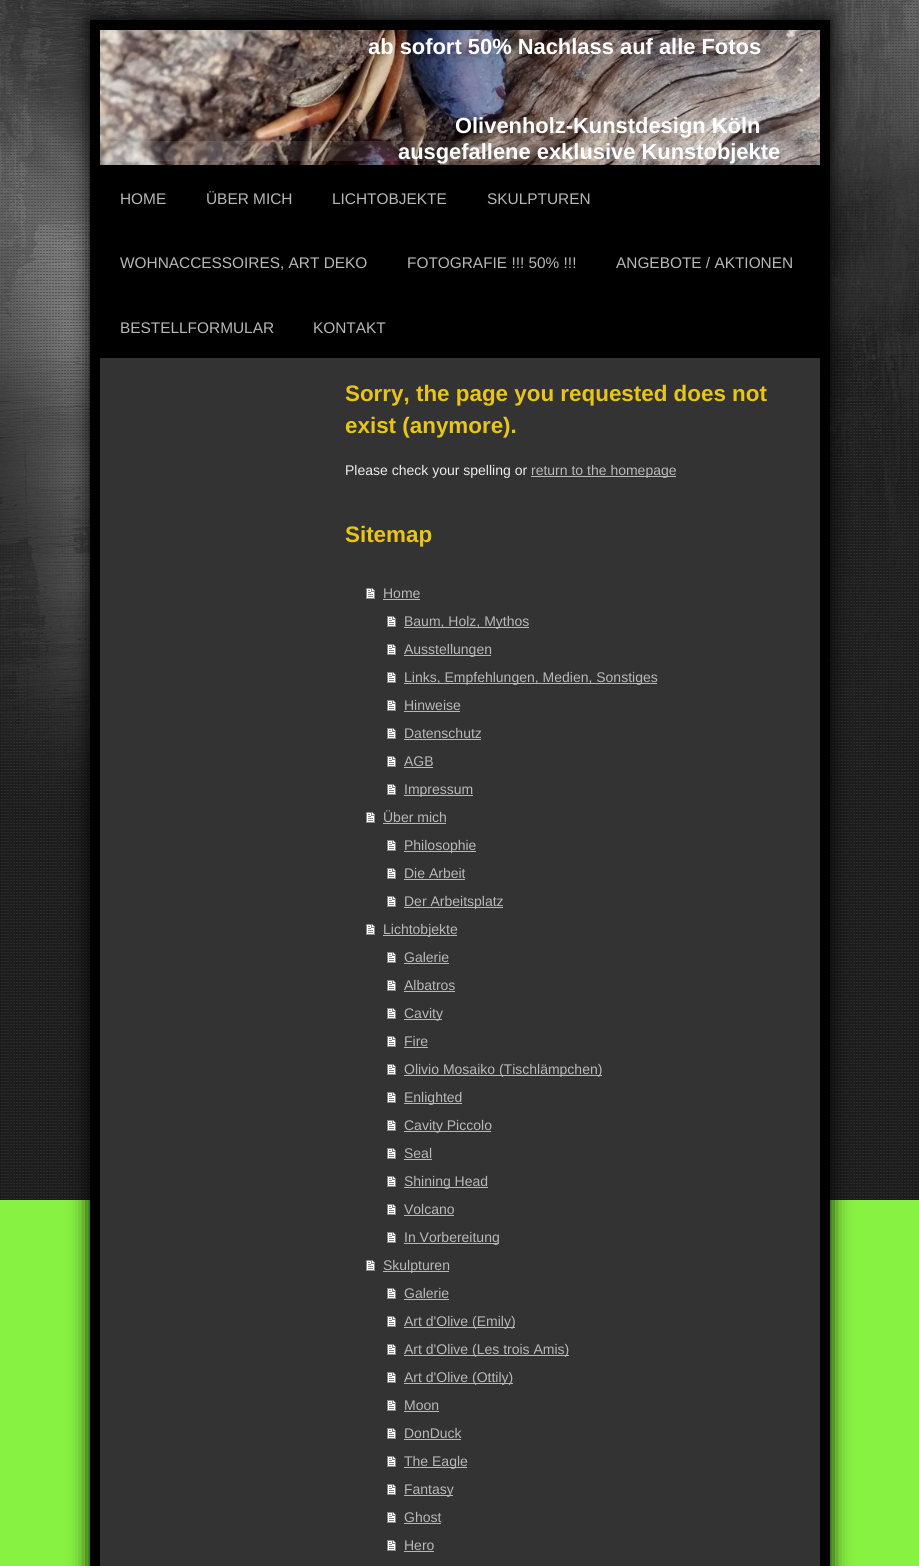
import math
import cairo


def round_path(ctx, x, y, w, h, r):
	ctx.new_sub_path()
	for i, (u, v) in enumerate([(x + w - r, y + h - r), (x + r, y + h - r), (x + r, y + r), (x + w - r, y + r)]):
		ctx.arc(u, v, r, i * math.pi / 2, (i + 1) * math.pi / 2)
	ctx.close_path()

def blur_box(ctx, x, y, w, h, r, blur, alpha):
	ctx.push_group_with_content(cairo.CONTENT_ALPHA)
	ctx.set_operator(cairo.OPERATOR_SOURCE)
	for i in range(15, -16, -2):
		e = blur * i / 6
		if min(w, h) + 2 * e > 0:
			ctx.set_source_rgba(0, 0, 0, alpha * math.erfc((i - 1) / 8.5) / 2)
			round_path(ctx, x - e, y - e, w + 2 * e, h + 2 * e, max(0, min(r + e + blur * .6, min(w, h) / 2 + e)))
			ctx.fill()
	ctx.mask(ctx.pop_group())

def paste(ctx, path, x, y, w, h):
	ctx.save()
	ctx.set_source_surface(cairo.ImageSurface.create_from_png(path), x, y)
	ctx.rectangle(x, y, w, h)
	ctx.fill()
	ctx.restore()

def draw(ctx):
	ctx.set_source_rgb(0.533, 0.949, 0.259)
	ctx.paint()
	paste(ctx, 'media/1.png', 0, 0, 919, 1200)
	ctx.set_source_rgb(0, 0, 0)
	blur_box(ctx, 90, 20, 740, 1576, 0, 10, 1)
	ctx.set_source_rgb(0, 0, 0)
	ctx.rectangle(90, 20, 740, 1546)
	ctx.fill()
	paste(ctx, 'media/2.png', 100, 30, 720, 135)
	ctx.select_font_face('Liberation Sans', cairo.FONT_SLANT_NORMAL, cairo.FONT_WEIGHT_BOLD)
	ctx.set_font_size(21.9)
	ctx.set_source_rgb(1, 1, 1)
	ctx.move_to(368, 54)
	ctx.show_text('ab sofort 50% Nachlass auf alle Fotos')
	ctx.move_to(455, 133)
	ctx.show_text('Olivenholz-Kunstdesign Köln')
	ctx.set_source_rgba(1, 1, 1, 0.1)
	ctx.rectangle(100, 141, 720, 20)
	ctx.fill()
	ctx.set_source_rgb(1, 1, 1)
	ctx.move_to(398, 159)
	ctx.show_text('ausgefallene exklusive Kunstobjekte')
	ctx.select_font_face('Liberation Sans')
	ctx.set_font_size(15.4)
	ctx.set_source_rgb(0.722, 0.722, 0.722)
	for x, y, s in [
		(120, 204, 'HOME'),
		(206, 204, 'ÜBER MICH'),
		(332, 204, 'LICHTOBJEKTE'),
		(487, 204, 'SKULPTUREN'),
		(120, 268, 'WOHNACCESSOIRES, ART DEKO'),
		(407, 268, 'FOTOGRAFIE !!! 50% !!!'),
		(616, 268, 'ANGEBOTE / AKTIONEN'),
		(120, 333, 'BESTELLFORMULAR'),
		(313, 333, 'KONTAKT'),
	]:
		ctx.move_to(x, y)
		ctx.show_text(s)
	ctx.set_source_rgb(0.2, 0.2, 0.2)
	ctx.rectangle(100, 358, 720, 1208)
	ctx.fill()
	ctx.select_font_face('Liberation Sans', cairo.FONT_SLANT_NORMAL, cairo.FONT_WEIGHT_BOLD)
	ctx.set_font_size(22.4)
	ctx.set_source_rgb(0.91, 0.773, 0.094)
	ctx.move_to(345, 401)
	ctx.show_text('Sorry, the page you requested does not')
	ctx.move_to(345, 433)
	ctx.show_text('exist (anymore).')
	ctx.select_font_face('Liberation Sans')
	ctx.set_font_size(14)
	ctx.set_source_rgb(0.922, 0.922, 0.922)
	ctx.move_to(345, 475)
	ctx.show_text('Please check your spelling or')
	ctx.set_source_rgb(0.722, 0.722, 0.722)
	ctx.rectangle(531, 476, 145, 1)
	ctx.fill()
	ctx.move_to(531, 475)
	ctx.show_text('return to the homepage')
	ctx.select_font_face('Liberation Sans', cairo.FONT_SLANT_NORMAL, cairo.FONT_WEIGHT_BOLD)
	ctx.set_font_size(22.4)
	ctx.set_source_rgb(0.91, 0.773, 0.094)
	ctx.move_to(345, 542)
	ctx.show_text('Sitemap')
	paste(ctx, 'media/3.png', 366, 588, 9, 11)
	ctx.select_font_face('Liberation Sans')
	ctx.set_font_size(14)
	ctx.set_source_rgb(0.722, 0.722, 0.722)
	ctx.move_to(383, 598)
	ctx.show_text('Home')
	ctx.rectangle(383, 599, 37, 1)
	ctx.fill()
	paste(ctx, 'media/3.png', 387, 616, 9, 11)
	ctx.rectangle(404, 627, 125, 1)
	ctx.fill()
	ctx.move_to(404, 626)
	ctx.show_text('Baum, Holz, Mythos')
	paste(ctx, 'media/3.png', 387, 644, 9, 11)
	ctx.rectangle(404, 655, 87, 1)
	ctx.fill()
	ctx.move_to(404, 654)
	ctx.show_text('Ausstellungen')
	paste(ctx, 'media/3.png', 387, 672, 9, 11)
	ctx.rectangle(404, 683, 253, 1)
	ctx.fill()
	ctx.move_to(404, 682)
	ctx.show_text('Links, Empfehlungen, Medien, Sonstiges')
	paste(ctx, 'media/3.png', 387, 700, 9, 11)
	ctx.move_to(404, 710)
	ctx.show_text('Hinweise')
	ctx.rectangle(404, 711, 56, 1)
	ctx.fill()
	paste(ctx, 'media/3.png', 387, 728, 9, 11)
	ctx.move_to(404, 738)
	ctx.show_text('Datenschutz')
	ctx.rectangle(404, 739, 77, 1)
	ctx.fill()
	paste(ctx, 'media/3.png', 387, 756, 9, 11)
	ctx.move_to(404, 766)
	ctx.show_text('AGB')
	ctx.rectangle(404, 767, 29, 1)
	ctx.fill()
	paste(ctx, 'media/3.png', 387, 784, 9, 11)
	ctx.rectangle(404, 795, 69, 1)
	ctx.fill()
	ctx.move_to(404, 794)
	ctx.show_text('Impressum')
	paste(ctx, 'media/3.png', 366, 812, 9, 11)
	ctx.move_to(383, 822)
	ctx.show_text('Über mich')
	ctx.rectangle(383, 823, 63, 1)
	ctx.fill()
	paste(ctx, 'media/3.png', 387, 840, 9, 11)
	ctx.rectangle(404, 851, 72, 1)
	ctx.fill()
	ctx.move_to(404, 850)
	ctx.show_text('Philosophie')
	paste(ctx, 'media/3.png', 387, 868, 9, 11)
	ctx.move_to(404, 878)
	ctx.show_text('Die Arbeit')
	ctx.rectangle(404, 879, 61, 1)
	ctx.fill()
	paste(ctx, 'media/3.png', 387, 896, 9, 11)
	ctx.rectangle(404, 907, 99, 1)
	ctx.fill()
	ctx.move_to(404, 906)
	ctx.show_text('Der Arbeitsplatz')
	paste(ctx, 'media/3.png', 366, 924, 9, 11)
	ctx.rectangle(383, 935, 74, 1)
	ctx.fill()
	ctx.move_to(383, 934)
	ctx.show_text('Lichtobjekte')
	paste(ctx, 'media/3.png', 387, 952, 9, 11)
	ctx.move_to(404, 962)
	ctx.show_text('Galerie')
	ctx.rectangle(404, 963, 45, 1)
	ctx.fill()
	paste(ctx, 'media/3.png', 387, 980, 9, 11)
	ctx.move_to(404, 990)
	ctx.show_text('Albatros')
	ctx.rectangle(404, 991, 51, 1)
	ctx.fill()
	paste(ctx, 'media/3.png', 387, 1008, 9, 11)
	ctx.rectangle(404, 1019, 38, 1)
	ctx.fill()
	ctx.move_to(404, 1018)
	ctx.show_text('Cavity')
	paste(ctx, 'media/3.png', 387, 1036, 9, 11)
	ctx.move_to(404, 1046)
	ctx.show_text('Fire')
	ctx.rectangle(404, 1047, 24, 1)
	ctx.fill()
	paste(ctx, 'media/3.png', 387, 1064, 9, 11)
	ctx.rectangle(404, 1075, 198, 1)
	ctx.fill()
	ctx.move_to(404, 1074)
	ctx.show_text('Olivio Mosaiko (Tischlämpchen)')
	paste(ctx, 'media/3.png', 387, 1092, 9, 11)
	ctx.rectangle(404, 1103, 58, 1)
	ctx.fill()
	ctx.move_to(404, 1102)
	ctx.show_text('Enlighted')
	paste(ctx, 'media/3.png', 387, 1120, 9, 11)
	ctx.rectangle(404, 1131, 87, 1)
	ctx.fill()
	ctx.move_to(404, 1130)
	ctx.show_text('Cavity Piccolo')
	paste(ctx, 'media/3.png', 387, 1148, 9, 11)
	ctx.move_to(404, 1158)
	ctx.show_text('Seal')
	ctx.rectangle(404, 1159, 28, 1)
	ctx.fill()
	paste(ctx, 'media/3.png', 387, 1176, 9, 11)
	ctx.rectangle(404, 1187, 84, 1)
	ctx.fill()
	ctx.move_to(404, 1186)
	ctx.show_text('Shining Head')
	paste(ctx, 'media/3.png', 387, 1204, 9, 11)
	ctx.move_to(404, 1214)
	ctx.show_text('Volcano')
	ctx.rectangle(404, 1215, 50, 1)
	ctx.fill()
	paste(ctx, 'media/3.png', 387, 1232, 9, 11)
	ctx.rectangle(404, 1243, 95, 1)
	ctx.fill()
	ctx.move_to(404, 1242)
	ctx.show_text('In Vorbereitung')
	paste(ctx, 'media/3.png', 366, 1260, 9, 11)
	ctx.rectangle(383, 1271, 66, 1)
	ctx.fill()
	ctx.move_to(383, 1270)
	ctx.show_text('Skulpturen')
	paste(ctx, 'media/3.png', 387, 1288, 9, 11)
	ctx.move_to(404, 1298)
	ctx.show_text('Galerie')
	ctx.rectangle(404, 1299, 45, 1)
	ctx.fill()
	paste(ctx, 'media/3.png', 387, 1316, 9, 11)
	ctx.rectangle(404, 1327, 111, 1)
	ctx.fill()
	ctx.move_to(404, 1326)
	ctx.show_text('Art d\'Olive (Emily)')
	paste(ctx, 'media/3.png', 387, 1344, 9, 11)
	ctx.rectangle(404, 1355, 165, 1)
	ctx.fill()
	ctx.move_to(404, 1354)
	ctx.show_text('Art d\'Olive (Les trois Amis)')
	paste(ctx, 'media/3.png', 387, 1372, 9, 11)
	ctx.rectangle(404, 1383, 109, 1)
	ctx.fill()
	ctx.move_to(404, 1382)
	ctx.show_text('Art d\'Olive (Ottily)')
	paste(ctx, 'media/3.png', 387, 1400, 9, 11)
	ctx.move_to(404, 1410)
	ctx.show_text('Moon')
	ctx.rectangle(404, 1411, 35, 1)
	ctx.fill()
	paste(ctx, 'media/3.png', 387, 1428, 9, 11)
	ctx.move_to(404, 1438)
	ctx.show_text('DonDuck')
	ctx.rectangle(404, 1439, 57, 1)
	ctx.fill()
	paste(ctx, 'media/3.png', 387, 1456, 9, 11)
	ctx.rectangle(404, 1467, 63, 1)
	ctx.fill()
	ctx.move_to(404, 1466)
	ctx.show_text('The Eagle')
	paste(ctx, 'media/3.png', 387, 1484, 9, 11)
	ctx.rectangle(404, 1495, 49, 1)
	ctx.fill()
	ctx.move_to(404, 1494)
	ctx.show_text('Fantasy')
	paste(ctx, 'media/3.png', 387, 1512, 9, 11)
	ctx.move_to(404, 1522)
	ctx.show_text('Ghost')
	ctx.rectangle(404, 1523, 37, 1)
	ctx.fill()
	paste(ctx, 'media/3.png', 387, 1540, 9, 11)
	ctx.move_to(404, 1550)
	ctx.show_text('Hero')
	ctx.rectangle(404, 1551, 30, 1)
	ctx.fill()


surface = cairo.ImageSurface(cairo.FORMAT_RGB24, 919, 1566)
ctx = cairo.Context(surface)
options = cairo.FontOptions()
options.set_hint_metrics(cairo.HINT_METRICS_OFF)
options.set_hint_style(cairo.HINT_STYLE_NONE)
ctx.set_font_options(options)
ctx.set_miter_limit(4)
draw(ctx)
surface.write_to_png('image.png')
